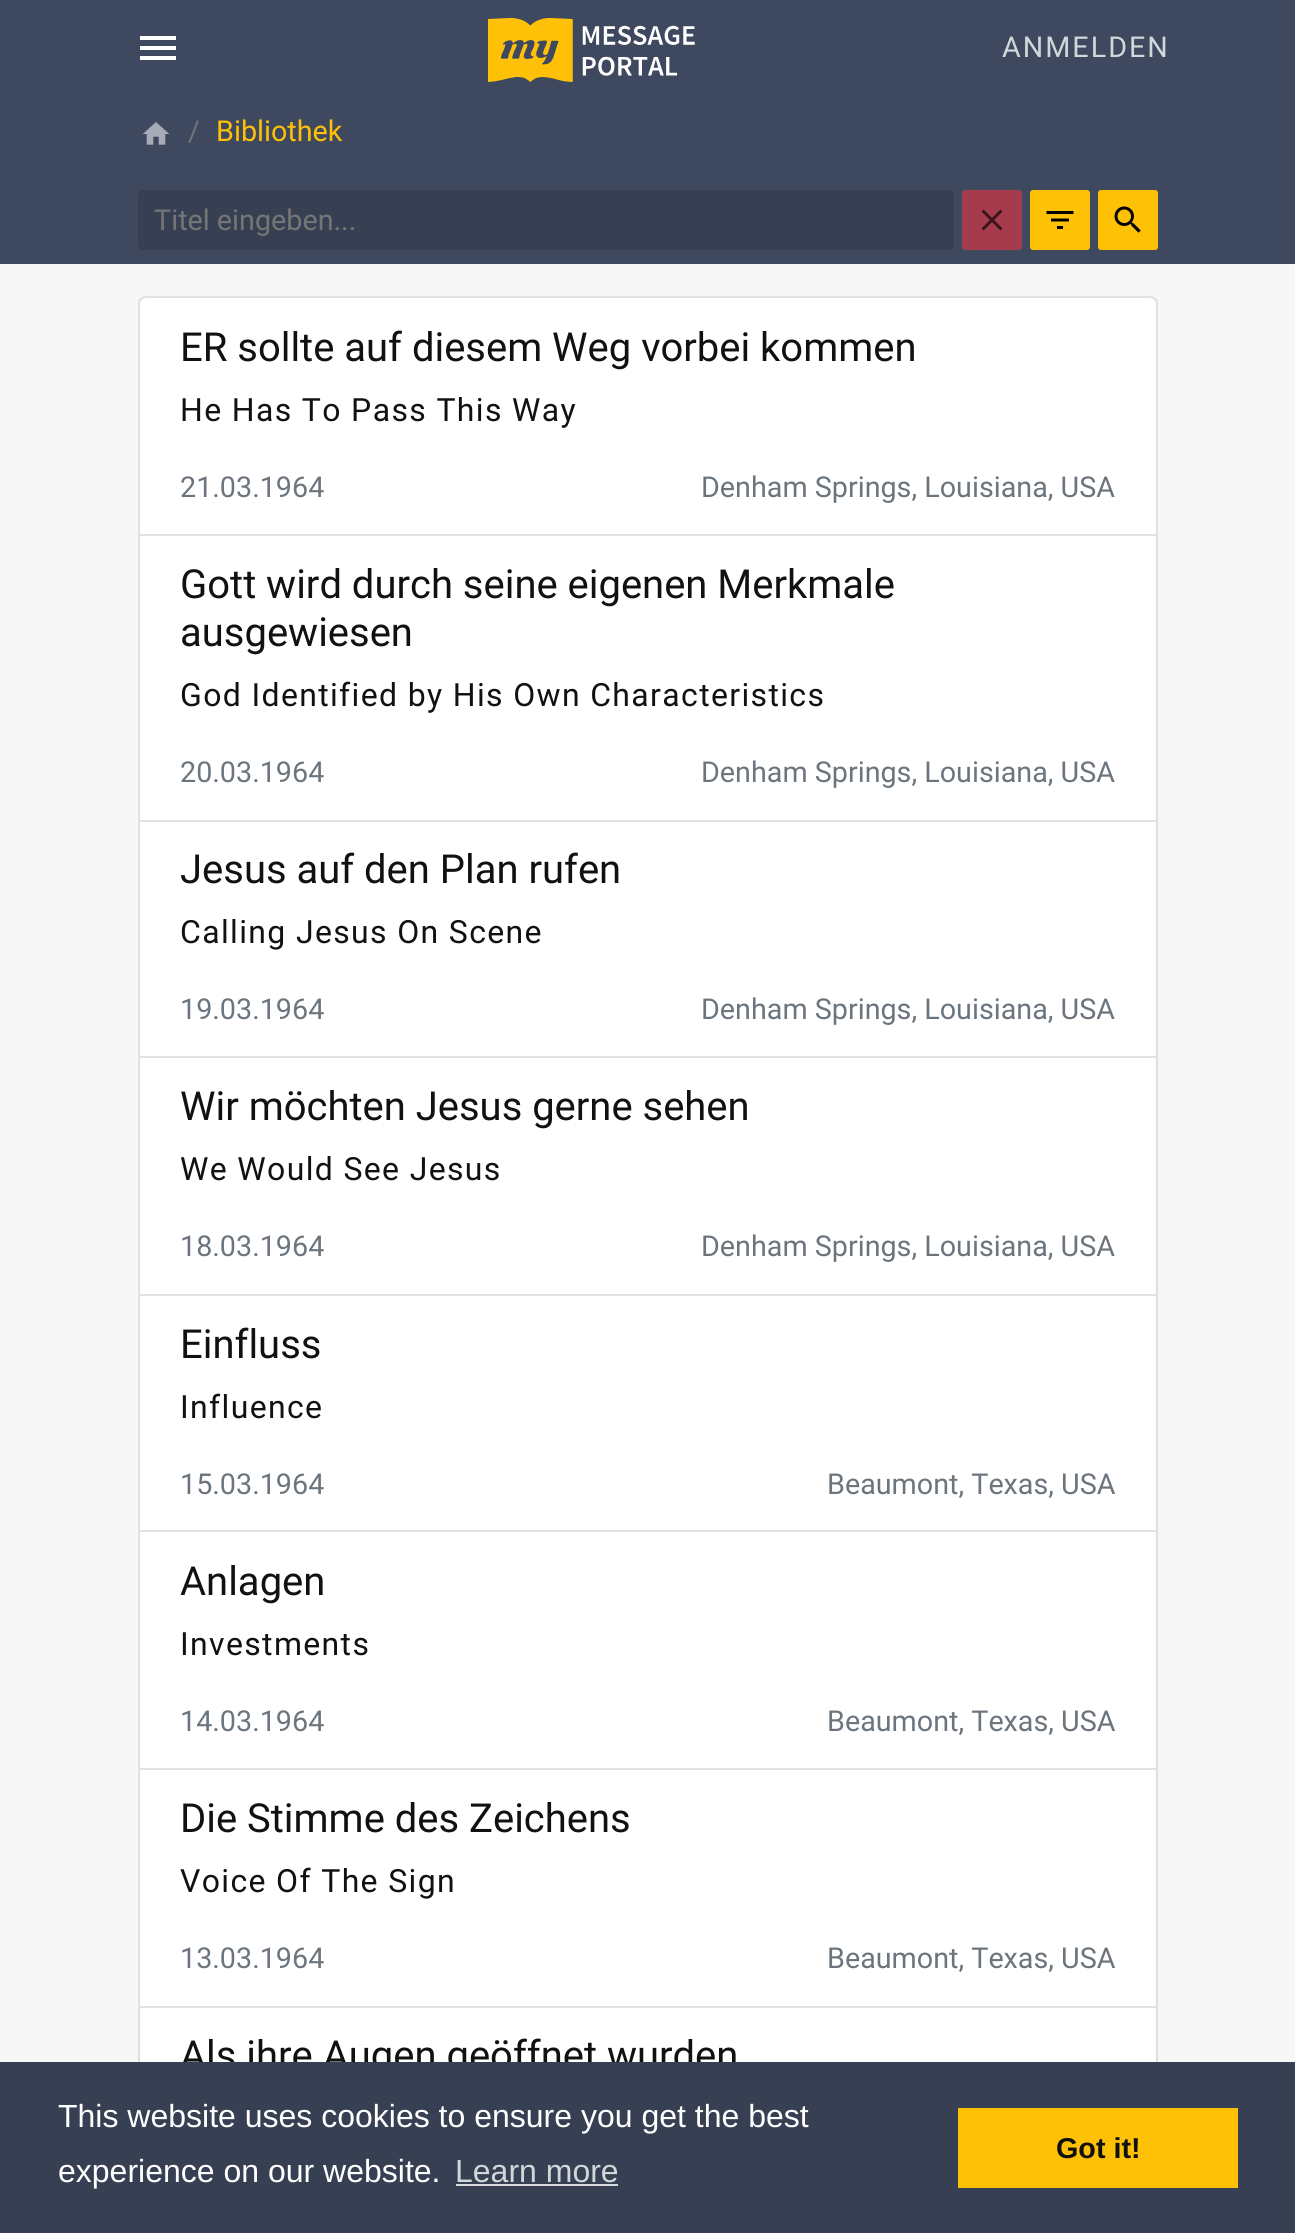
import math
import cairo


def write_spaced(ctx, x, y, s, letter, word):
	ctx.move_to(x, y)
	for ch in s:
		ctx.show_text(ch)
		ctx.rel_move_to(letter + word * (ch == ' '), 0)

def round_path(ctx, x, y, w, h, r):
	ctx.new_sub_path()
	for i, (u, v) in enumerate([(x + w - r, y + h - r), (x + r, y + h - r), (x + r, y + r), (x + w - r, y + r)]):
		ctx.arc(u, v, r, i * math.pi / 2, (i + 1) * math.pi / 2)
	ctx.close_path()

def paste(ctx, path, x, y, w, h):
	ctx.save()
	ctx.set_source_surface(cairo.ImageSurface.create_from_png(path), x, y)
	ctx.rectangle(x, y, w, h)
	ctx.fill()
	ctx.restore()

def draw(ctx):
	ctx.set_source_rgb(0.243, 0.286, 0.373)
	ctx.paint()
	ctx.set_source_rgb(1, 1, 1)
	ctx.new_path()
	ctx.move_to(140, 36)
	ctx.line_to(176, 36)
	ctx.line_to(176, 40)
	ctx.line_to(140, 40)
	ctx.close_path()
	ctx.move_to(140, 50)
	ctx.line_to(140, 46)
	ctx.line_to(176, 46)
	ctx.line_to(176, 50)
	ctx.close_path()
	ctx.move_to(140, 60)
	ctx.line_to(140, 56)
	ctx.line_to(176, 56)
	ctx.line_to(176, 60)
	ctx.close_path()
	ctx.fill()
	paste(ctx, 'media/1.png', 488, 18, 207, 64)
	ctx.select_font_face('Roboto')
	ctx.set_font_size(28.75)
	ctx.set_source_rgb(0.824, 0.843, 0.855)
	write_spaced(ctx, 1002, 57, 'ANMELDEN', 2, 0)
	paste(ctx, 'media/2.png', 142, 122, 28, 23)
	ctx.set_source_rgb(0.424, 0.459, 0.49)
	ctx.move_to(188, 141)
	ctx.show_text('/')
	ctx.set_source_rgb(1, 0.757, 0.027)
	ctx.move_to(216, 141)
	ctx.show_text('Bibliothek')
	ctx.set_source_rgb(0.216, 0.251, 0.325)
	round_path(ctx, 138, 190, 816, 60, 4)
	ctx.fill()
	ctx.set_source_rgb(0.459, 0.459, 0.459)
	ctx.move_to(154, 230)
	ctx.show_text('Titel eingeben...')
	ctx.set_source_rgb(0.647, 0.235, 0.306)
	round_path(ctx, 962, 190, 60, 60, 3)
	ctx.fill()
	paste(ctx, 'media/3.png', 981, 209, 22, 22)
	ctx.set_source_rgb(1, 0.757, 0.027)
	round_path(ctx, 1030, 190, 60, 60, 3)
	ctx.fill()
	paste(ctx, 'media/4.png', 1046, 211, 28, 18)
	round_path(ctx, 1098, 190, 60, 60, 3)
	ctx.fill()
	paste(ctx, 'media/5.png', 1114, 206, 27, 27)
	ctx.set_source_rgb(0.965, 0.965, 0.969)
	ctx.rectangle(0, 264, 1295, 1798)
	ctx.fill()
	ctx.set_source_rgb(1, 1, 1)
	ctx.new_path()
	ctx.move_to(146, 296)
	ctx.line_to(1150, 296)
	ctx.curve_to(1154.5, 296, 1158, 299.5, 1158, 304)
	ctx.line_to(1158, 536)
	ctx.line_to(138, 536)
	ctx.line_to(138, 304)
	ctx.curve_to(138, 299.5, 141.5, 296, 146, 296)
	ctx.close_path()
	ctx.fill()
	ctx.new_path()
	ctx.move_to(146, 297)
	ctx.line_to(1150, 297)
	ctx.curve_to(1154, 297, 1157, 300, 1157, 304)
	ctx.line_to(1157, 535)
	ctx.line_to(139, 535)
	ctx.line_to(139, 304)
	ctx.curve_to(139, 300, 142, 297, 146, 297)
	ctx.close_path()
	ctx.set_source_rgba(0, 0, 0, 0.12)
	ctx.stroke()
	ctx.set_font_size(40)
	ctx.set_source_rgb(0.067, 0.071, 0.063)
	ctx.move_to(180, 361)
	ctx.show_text('ER sollte auf diesem Weg vorbei kommen')
	ctx.set_font_size(32)
	write_spaced(ctx, 180, 421, 'He Has To Pass This Way', 1.35, 0)
	ctx.set_font_size(28.75)
	ctx.set_source_rgb(0.424, 0.459, 0.49)
	ctx.move_to(180, 497)
	ctx.show_text('21.03.1964')
	ctx.move_to(701, 497)
	ctx.show_text('Denham Springs, Louisiana, USA')
	ctx.set_source_rgb(1, 1, 1)
	ctx.rectangle(138, 536, 1020, 1472)
	ctx.fill()
	ctx.set_source_rgb(0.875, 0.875, 0.875)
	ctx.new_path()
	ctx.move_to(1158, 536)
	ctx.line_to(1158, 822)
	ctx.line_to(1156, 820)
	ctx.line_to(1156, 536)
	ctx.close_path()
	ctx.fill()
	ctx.set_source_rgba(0, 0, 0, 0.12)
	ctx.new_path()
	ctx.move_to(1158, 822)
	ctx.line_to(138, 822)
	ctx.line_to(140, 820)
	ctx.line_to(1156, 820)
	ctx.close_path()
	ctx.fill()
	ctx.new_path()
	ctx.move_to(138, 822)
	ctx.line_to(138, 536)
	ctx.line_to(140, 536)
	ctx.line_to(140, 820)
	ctx.close_path()
	ctx.fill()
	ctx.set_font_size(40)
	ctx.set_source_rgb(0.067, 0.071, 0.063)
	ctx.move_to(180, 598)
	ctx.show_text('Gott wird durch seine eigenen Merkmale')
	ctx.move_to(180, 646)
	ctx.show_text('ausgewiesen')
	ctx.set_font_size(32)
	write_spaced(ctx, 180, 706, 'God Identified by His Own Characteristics', 1.35, 0)
	ctx.set_font_size(28.75)
	ctx.set_source_rgb(0.424, 0.459, 0.49)
	ctx.move_to(180, 782)
	ctx.show_text('20.03.1964')
	ctx.move_to(701, 782)
	ctx.show_text('Denham Springs, Louisiana, USA')
	ctx.set_source_rgb(0.875, 0.875, 0.875)
	ctx.new_path()
	ctx.move_to(1158, 822)
	ctx.line_to(1158, 1058)
	ctx.line_to(1156, 1056)
	ctx.line_to(1156, 822)
	ctx.close_path()
	ctx.fill()
	ctx.set_source_rgba(0, 0, 0, 0.12)
	ctx.new_path()
	ctx.move_to(1158, 1058)
	ctx.line_to(138, 1058)
	ctx.line_to(140, 1056)
	ctx.line_to(1156, 1056)
	ctx.close_path()
	ctx.fill()
	ctx.new_path()
	ctx.move_to(138, 1058)
	ctx.line_to(138, 822)
	ctx.line_to(140, 822)
	ctx.line_to(140, 1056)
	ctx.close_path()
	ctx.fill()
	ctx.set_font_size(40)
	ctx.set_source_rgb(0.067, 0.071, 0.063)
	ctx.move_to(180, 883)
	ctx.show_text('Jesus auf den Plan rufen')
	ctx.set_font_size(32)
	write_spaced(ctx, 180, 943, 'Calling Jesus On Scene', 1.35, 0)
	ctx.set_font_size(28.75)
	ctx.set_source_rgb(0.424, 0.459, 0.49)
	ctx.move_to(180, 1019)
	ctx.show_text('19.03.1964')
	ctx.move_to(701, 1019)
	ctx.show_text('Denham Springs, Louisiana, USA')
	ctx.set_source_rgb(0.875, 0.875, 0.875)
	ctx.new_path()
	ctx.move_to(1158, 1058)
	ctx.line_to(1158, 1296)
	ctx.line_to(1156, 1294)
	ctx.line_to(1156, 1058)
	ctx.close_path()
	ctx.fill()
	ctx.set_source_rgba(0, 0, 0, 0.12)
	ctx.new_path()
	ctx.move_to(1158, 1296)
	ctx.line_to(138, 1296)
	ctx.line_to(140, 1294)
	ctx.line_to(1156, 1294)
	ctx.close_path()
	ctx.fill()
	ctx.new_path()
	ctx.move_to(138, 1296)
	ctx.line_to(138, 1058)
	ctx.line_to(140, 1058)
	ctx.line_to(140, 1294)
	ctx.close_path()
	ctx.fill()
	ctx.set_font_size(40)
	ctx.set_source_rgb(0.067, 0.071, 0.063)
	ctx.move_to(180, 1120)
	ctx.show_text('Wir möchten Jesus gerne sehen')
	ctx.set_font_size(32)
	write_spaced(ctx, 180, 1180, 'We Would See Jesus', 1.35, 0)
	ctx.set_font_size(28.75)
	ctx.set_source_rgb(0.424, 0.459, 0.49)
	ctx.move_to(180, 1256)
	ctx.show_text('18.03.1964')
	ctx.move_to(701, 1256)
	ctx.show_text('Denham Springs, Louisiana, USA')
	ctx.set_source_rgb(0.875, 0.875, 0.875)
	ctx.new_path()
	ctx.move_to(1158, 1296)
	ctx.line_to(1158, 1532)
	ctx.line_to(1156, 1530)
	ctx.line_to(1156, 1296)
	ctx.close_path()
	ctx.fill()
	ctx.set_source_rgba(0, 0, 0, 0.12)
	ctx.new_path()
	ctx.move_to(1158, 1532)
	ctx.line_to(138, 1532)
	ctx.line_to(140, 1530)
	ctx.line_to(1156, 1530)
	ctx.close_path()
	ctx.fill()
	ctx.new_path()
	ctx.move_to(138, 1532)
	ctx.line_to(138, 1296)
	ctx.line_to(140, 1296)
	ctx.line_to(140, 1530)
	ctx.close_path()
	ctx.fill()
	ctx.set_font_size(40)
	ctx.set_source_rgb(0.067, 0.071, 0.063)
	ctx.move_to(180, 1358)
	ctx.show_text('Einfluss')
	ctx.set_font_size(32)
	write_spaced(ctx, 180, 1418, 'Influence', 1.35, 0)
	ctx.set_font_size(28.75)
	ctx.set_source_rgb(0.424, 0.459, 0.49)
	ctx.move_to(180, 1494)
	ctx.show_text('15.03.1964')
	ctx.move_to(827, 1494)
	ctx.show_text('Beaumont, Texas, USA')
	ctx.set_source_rgb(0.875, 0.875, 0.875)
	ctx.new_path()
	ctx.move_to(1158, 1532)
	ctx.line_to(1158, 1770)
	ctx.line_to(1156, 1768)
	ctx.line_to(1156, 1532)
	ctx.close_path()
	ctx.fill()
	ctx.set_source_rgba(0, 0, 0, 0.12)
	ctx.new_path()
	ctx.move_to(1158, 1770)
	ctx.line_to(138, 1770)
	ctx.line_to(140, 1768)
	ctx.line_to(1156, 1768)
	ctx.close_path()
	ctx.fill()
	ctx.new_path()
	ctx.move_to(138, 1770)
	ctx.line_to(138, 1532)
	ctx.line_to(140, 1532)
	ctx.line_to(140, 1768)
	ctx.close_path()
	ctx.fill()
	ctx.set_font_size(40)
	ctx.set_source_rgb(0.067, 0.071, 0.063)
	ctx.move_to(180, 1595)
	ctx.show_text('Anlagen')
	ctx.set_font_size(32)
	write_spaced(ctx, 180, 1655, 'Investments', 1.35, 0)
	ctx.set_font_size(28.75)
	ctx.set_source_rgb(0.424, 0.459, 0.49)
	ctx.move_to(180, 1731)
	ctx.show_text('14.03.1964')
	ctx.move_to(827, 1731)
	ctx.show_text('Beaumont, Texas, USA')
	ctx.set_source_rgb(0.875, 0.875, 0.875)
	ctx.new_path()
	ctx.move_to(1158, 1770)
	ctx.line_to(1158, 2008)
	ctx.line_to(1156, 2006)
	ctx.line_to(1156, 1770)
	ctx.close_path()
	ctx.fill()
	ctx.set_source_rgba(0, 0, 0, 0.12)
	ctx.new_path()
	ctx.move_to(1158, 2008)
	ctx.line_to(138, 2008)
	ctx.line_to(140, 2006)
	ctx.line_to(1156, 2006)
	ctx.close_path()
	ctx.fill()
	ctx.new_path()
	ctx.move_to(138, 2008)
	ctx.line_to(138, 1770)
	ctx.line_to(140, 1770)
	ctx.line_to(140, 2006)
	ctx.close_path()
	ctx.fill()
	ctx.set_font_size(40)
	ctx.set_source_rgb(0.067, 0.071, 0.063)
	ctx.move_to(180, 1832)
	ctx.show_text('Die Stimme des Zeichens')
	ctx.set_font_size(32)
	write_spaced(ctx, 180, 1892, 'Voice Of The Sign', 1.35, 0)
	ctx.set_font_size(28.75)
	ctx.set_source_rgb(0.424, 0.459, 0.49)
	ctx.move_to(180, 1968)
	ctx.show_text('13.03.1964')
	ctx.move_to(827, 1968)
	ctx.show_text('Beaumont, Texas, USA')
	ctx.set_source_rgb(1, 1, 1)
	ctx.rectangle(140, 2008, 1016, 54)
	ctx.fill()
	ctx.set_source_rgb(0.875, 0.875, 0.875)
	ctx.new_path()
	ctx.move_to(1158, 2008)
	ctx.line_to(1158, 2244)
	ctx.line_to(1156, 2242)
	ctx.line_to(1156, 2008)
	ctx.close_path()
	ctx.fill()
	ctx.new_path()
	ctx.move_to(138, 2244)
	ctx.line_to(138, 2008)
	ctx.line_to(140, 2008)
	ctx.line_to(140, 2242)
	ctx.close_path()
	ctx.fill()
	ctx.set_font_size(40)
	ctx.set_source_rgb(0.067, 0.071, 0.063)
	ctx.move_to(180, 2069)
	ctx.show_text('Als ihre Augen geöffnet wurden')
	ctx.set_source_rgb(0.216, 0.251, 0.325)
	ctx.rectangle(0, 2062, 1295, 171)
	ctx.fill()
	ctx.select_font_face('Liberation Sans')
	ctx.set_font_size(32)
	ctx.set_source_rgb(1, 1, 1)
	ctx.move_to(58, 2127)
	ctx.show_text('This website uses cookies to ensure you get the best')
	ctx.move_to(58, 2182)
	ctx.show_text('experience on our website.')
	ctx.set_source_rgb(0.824, 0.843, 0.855)
	ctx.move_to(455, 2182)
	ctx.show_text('Learn more')
	ctx.set_source_rgb(0.843, 0.851, 0.867)
	ctx.rectangle(456, 2184, 162, 2)
	ctx.fill()
	ctx.set_source_rgb(1, 0.757, 0.027)
	ctx.rectangle(958, 2108, 280, 80)
	ctx.fill()
	ctx.select_font_face('Liberation Sans', cairo.FONT_SLANT_NORMAL, cairo.FONT_WEIGHT_BOLD)
	ctx.set_font_size(28.75)
	ctx.set_source_rgb(0.067, 0.071, 0.063)
	ctx.move_to(1056, 2158)
	ctx.show_text('Got it!')


surface = cairo.ImageSurface(cairo.FORMAT_RGB24, 1295, 2233)
ctx = cairo.Context(surface)
options = cairo.FontOptions()
options.set_hint_metrics(cairo.HINT_METRICS_OFF)
options.set_hint_style(cairo.HINT_STYLE_NONE)
ctx.set_font_options(options)
ctx.set_miter_limit(4)
draw(ctx)
surface.write_to_png('image.png')
